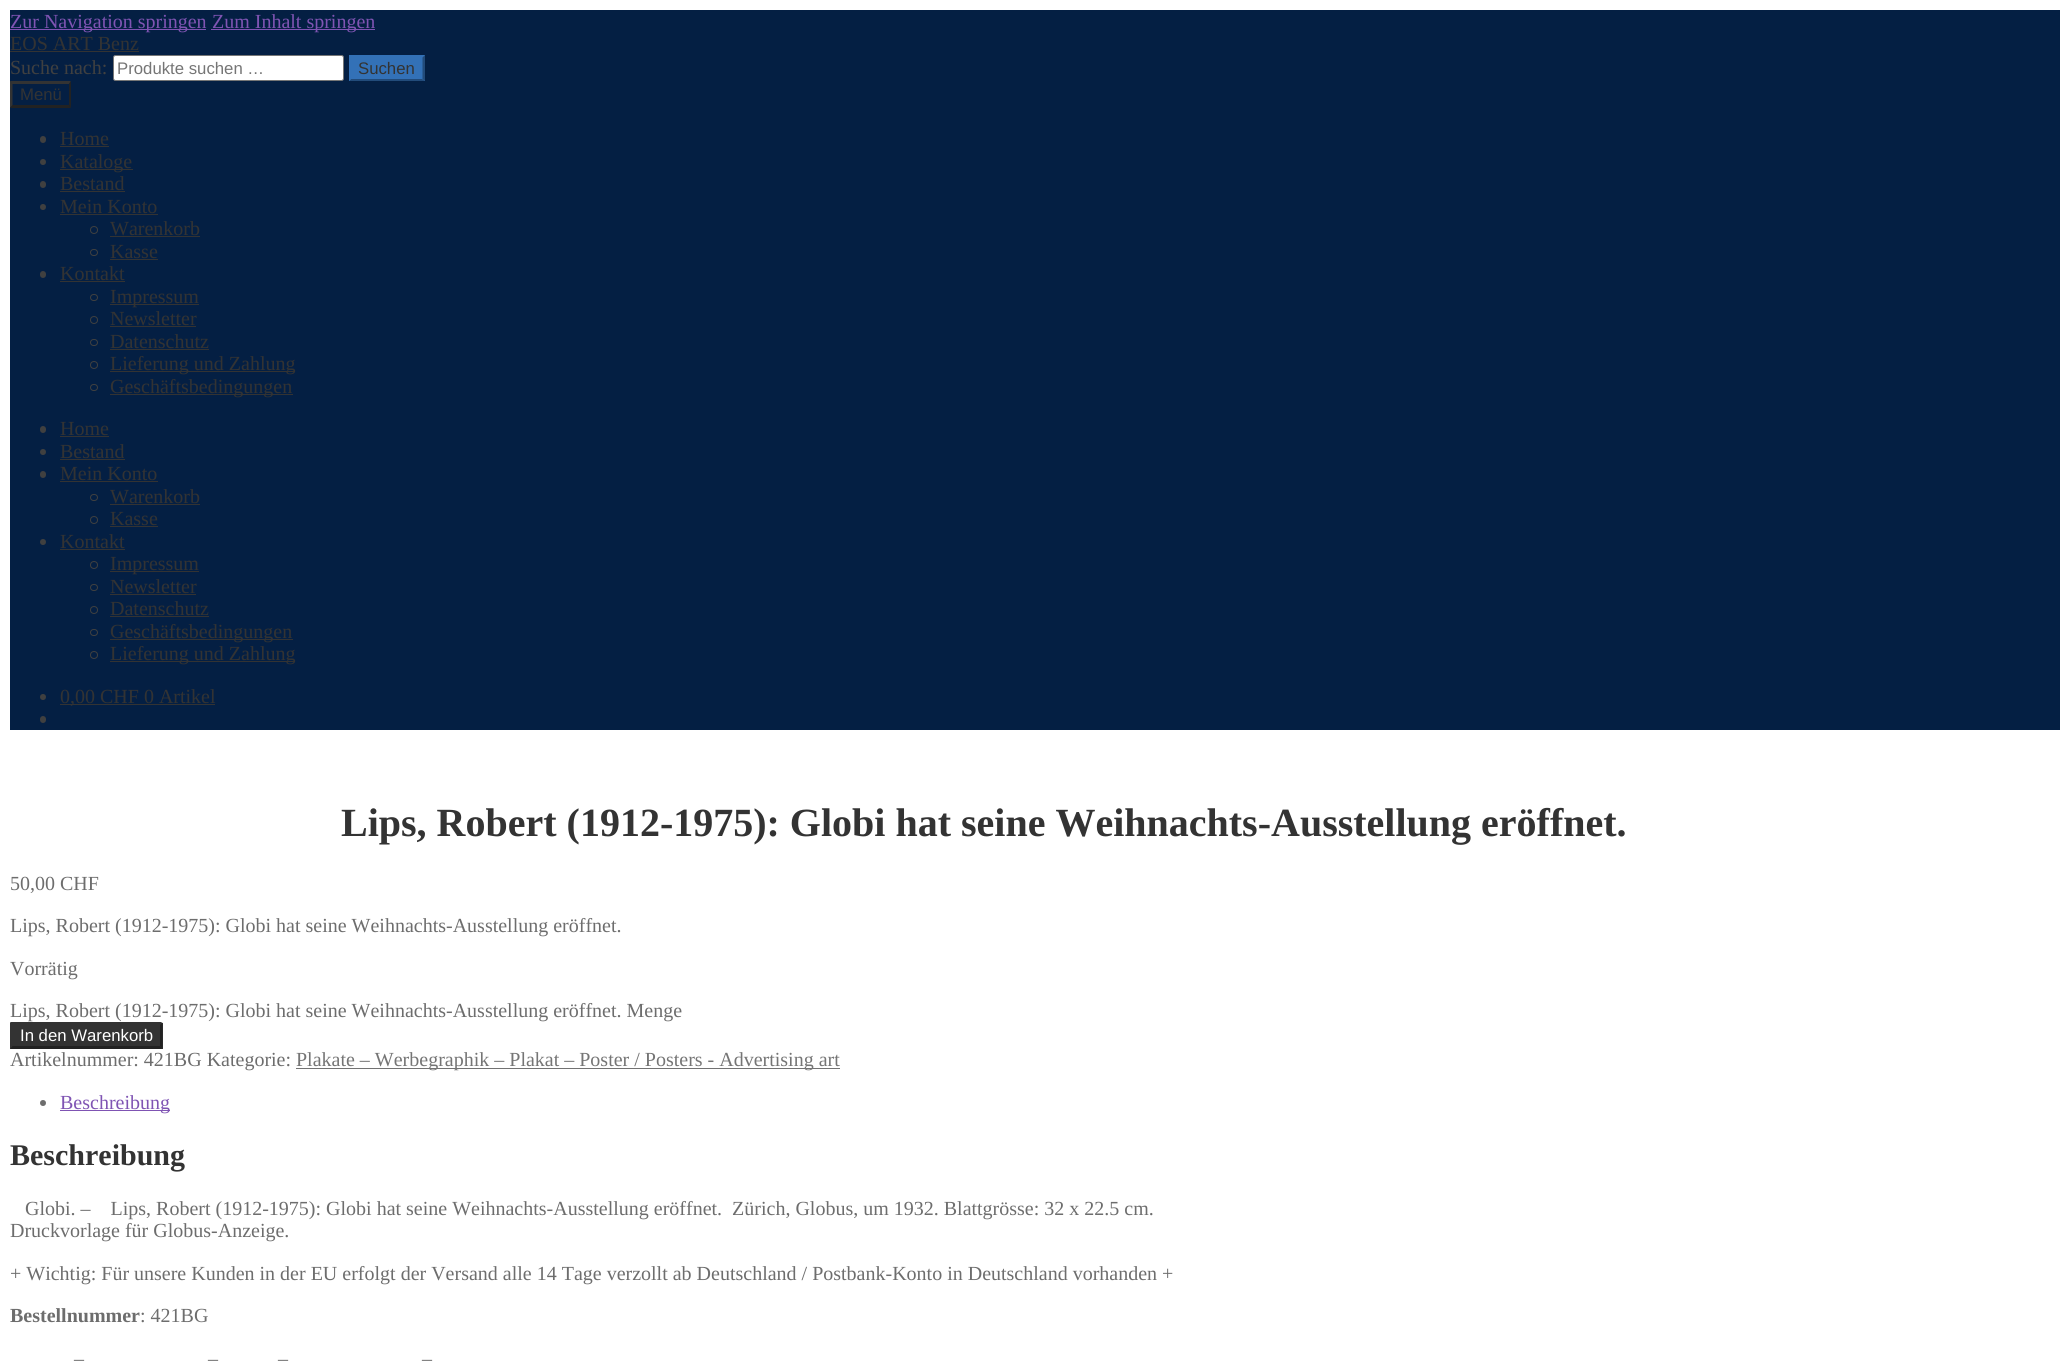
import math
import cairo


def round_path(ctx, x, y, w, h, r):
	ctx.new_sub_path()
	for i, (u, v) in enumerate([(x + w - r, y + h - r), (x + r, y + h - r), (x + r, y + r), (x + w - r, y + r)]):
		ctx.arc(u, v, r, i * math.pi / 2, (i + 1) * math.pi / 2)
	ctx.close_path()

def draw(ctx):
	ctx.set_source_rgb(1, 1, 1)
	ctx.paint()
	ctx.set_source_rgb(0.016, 0.122, 0.263)
	ctx.rectangle(10, 10, 2050, 720)
	ctx.fill()
	ctx.set_source_rgb(0.498, 0.329, 0.702)
	ctx.rectangle(10, 29, 196, 1)
	ctx.fill()
	ctx.select_font_face('Liberation Serif')
	ctx.set_font_size(20)
	ctx.move_to(10, 28)
	ctx.show_text('Zur Navigation springen')
	ctx.rectangle(211, 29, 164, 1)
	ctx.fill()
	ctx.move_to(212, 28)
	ctx.show_text('Zum Inhalt springen')
	ctx.set_source_rgb(0.2, 0.2, 0.2)
	ctx.move_to(10, 50)
	ctx.show_text('EOS ART Benz')
	ctx.rectangle(10, 51, 129, 1)
	ctx.fill()
	ctx.set_source_rgb(0.251, 0.251, 0.251)
	ctx.move_to(10, 74)
	ctx.show_text('Suche nach:')
	ctx.set_source_rgb(1, 1, 1)
	round_path(ctx, 113.5, 55.5, 230, 25, 2)
	ctx.fill_preserve()
	ctx.set_source_rgb(0.463, 0.463, 0.463)
	ctx.set_line_width(1)
	ctx.stroke()
	ctx.select_font_face('Liberation Sans')
	ctx.set_font_size(16.75)
	ctx.set_source_rgb(0.459, 0.459, 0.459)
	ctx.move_to(117, 74)
	ctx.show_text('Produkte suchen …')
	ctx.set_source_rgb(0.2, 0.443, 0.718)
	ctx.rectangle(349, 55, 76, 26)
	ctx.fill()
	ctx.set_source_rgb(0.133, 0.294, 0.478)
	ctx.new_path()
	ctx.move_to(425, 55)
	ctx.line_to(425, 81)
	ctx.line_to(422.5, 79)
	ctx.line_to(422.5, 57.5)
	ctx.close_path()
	ctx.fill()
	ctx.new_path()
	ctx.move_to(425, 81)
	ctx.line_to(349, 81)
	ctx.line_to(351, 79)
	ctx.line_to(422, 79)
	ctx.close_path()
	ctx.fill()
	ctx.set_source_rgb(0.2, 0.443, 0.718)
	ctx.new_path()
	ctx.move_to(349, 81)
	ctx.line_to(349, 55)
	ctx.line_to(351, 57.5)
	ctx.line_to(351, 79)
	ctx.close_path()
	ctx.fill()
	ctx.set_source_rgb(0.2, 0.2, 0.2)
	ctx.move_to(358, 74)
	ctx.show_text('Suchen')
	ctx.new_path()
	ctx.move_to(10, 81)
	ctx.line_to(71, 81)
	ctx.line_to(69, 84)
	ctx.line_to(12, 84)
	ctx.close_path()
	ctx.fill()
	ctx.set_source_rgb(0.133, 0.133, 0.133)
	ctx.new_path()
	ctx.move_to(71, 81)
	ctx.line_to(71, 107.5)
	ctx.line_to(69, 105)
	ctx.line_to(69, 84)
	ctx.close_path()
	ctx.fill()
	ctx.new_path()
	ctx.move_to(71, 108)
	ctx.line_to(10, 108)
	ctx.line_to(12, 105)
	ctx.line_to(69, 105)
	ctx.close_path()
	ctx.fill()
	ctx.set_source_rgb(0.2, 0.2, 0.2)
	ctx.new_path()
	ctx.move_to(10, 107.5)
	ctx.line_to(10, 81)
	ctx.line_to(12.5, 84)
	ctx.line_to(12.5, 105)
	ctx.close_path()
	ctx.fill()
	ctx.move_to(20, 100)
	ctx.show_text('Menü')
	ctx.set_source_rgb(0.251, 0.251, 0.251)
	round_path(ctx, 40, 136, 6, 7, 3)
	ctx.fill()
	ctx.select_font_face('Liberation Serif')
	ctx.set_font_size(20)
	ctx.set_source_rgb(0.2, 0.2, 0.2)
	ctx.move_to(60, 145)
	ctx.show_text('Home')
	ctx.rectangle(60, 146, 49, 1)
	ctx.fill()
	ctx.set_source_rgb(0.251, 0.251, 0.251)
	ctx.arc(43, 162, 3, 0, 2 * math.pi)
	ctx.fill()
	ctx.set_source_rgb(0.2, 0.2, 0.2)
	ctx.rectangle(60, 169, 73, 1)
	ctx.fill()
	ctx.move_to(60, 168)
	ctx.show_text('Kataloge')
	ctx.set_source_rgb(0.251, 0.251, 0.251)
	round_path(ctx, 40, 181, 6, 7, 3)
	ctx.fill()
	ctx.set_source_rgb(0.2, 0.2, 0.2)
	ctx.move_to(60, 190)
	ctx.show_text('Bestand')
	ctx.rectangle(60, 191, 65, 1)
	ctx.fill()
	ctx.set_source_rgb(0.251, 0.251, 0.251)
	ctx.arc(43, 207, 3, 0, 2 * math.pi)
	ctx.fill()
	ctx.set_source_rgb(0.2, 0.2, 0.2)
	ctx.move_to(60, 213)
	ctx.show_text('Mein Konto')
	ctx.rectangle(60, 214, 98, 1)
	ctx.fill()
	ctx.arc(94, 230, 3.5, 0, 2 * math.pi)
	ctx.set_source_rgb(0.251, 0.251, 0.251)
	ctx.stroke()
	ctx.set_source_rgb(0.2, 0.2, 0.2)
	ctx.move_to(110, 235)
	ctx.show_text('Warenkorb')
	ctx.rectangle(110, 236, 90, 1)
	ctx.fill()
	round_path(ctx, 90.5, 249.5, 7, 6, 3)
	ctx.set_source_rgb(0.251, 0.251, 0.251)
	ctx.stroke()
	ctx.set_source_rgb(0.2, 0.2, 0.2)
	ctx.move_to(110, 258)
	ctx.show_text('Kasse')
	ctx.rectangle(110, 259, 48, 1)
	ctx.fill()
	ctx.set_source_rgb(0.251, 0.251, 0.251)
	round_path(ctx, 40, 271, 6, 7, 3)
	ctx.fill()
	ctx.set_source_rgb(0.2, 0.2, 0.2)
	ctx.move_to(60, 280)
	ctx.show_text('Kontakt')
	ctx.rectangle(60, 281, 65, 1)
	ctx.fill()
	round_path(ctx, 90.5, 294.5, 7, 6, 3)
	ctx.set_source_rgb(0.251, 0.251, 0.251)
	ctx.stroke()
	ctx.set_source_rgb(0.2, 0.2, 0.2)
	ctx.rectangle(110, 304, 89, 1)
	ctx.fill()
	ctx.move_to(110, 303)
	ctx.show_text('Impressum')
	ctx.new_path()
	ctx.arc(94, 320, 3.5, 0, 2 * math.pi)
	ctx.set_source_rgb(0.251, 0.251, 0.251)
	ctx.stroke()
	ctx.set_source_rgb(0.2, 0.2, 0.2)
	ctx.move_to(110, 325)
	ctx.show_text('Newsletter')
	ctx.rectangle(110, 326, 86, 1)
	ctx.fill()
	round_path(ctx, 90.5, 339.5, 7, 6, 3)
	ctx.set_source_rgb(0.251, 0.251, 0.251)
	ctx.stroke()
	ctx.set_source_rgb(0.2, 0.2, 0.2)
	ctx.move_to(110, 348)
	ctx.show_text('Datenschutz')
	ctx.rectangle(110, 349, 99, 1)
	ctx.fill()
	ctx.arc(94, 365, 3.5, 0, 2 * math.pi)
	ctx.set_source_rgb(0.251, 0.251, 0.251)
	ctx.stroke()
	ctx.set_source_rgb(0.2, 0.2, 0.2)
	ctx.rectangle(110, 371, 185, 1)
	ctx.fill()
	ctx.move_to(110, 370)
	ctx.show_text('Lieferung und Zahlung')
	round_path(ctx, 90.5, 384.5, 7, 6, 3)
	ctx.set_source_rgb(0.251, 0.251, 0.251)
	ctx.stroke()
	ctx.set_source_rgb(0.2, 0.2, 0.2)
	ctx.rectangle(110, 394, 183, 1)
	ctx.fill()
	ctx.move_to(110, 393)
	ctx.show_text('Geschäftsbedingungen')
	ctx.set_source_rgb(0.251, 0.251, 0.251)
	round_path(ctx, 40, 426, 6, 7, 3)
	ctx.fill()
	ctx.set_source_rgb(0.2, 0.2, 0.2)
	ctx.move_to(60, 435)
	ctx.show_text('Home')
	ctx.rectangle(60, 436, 49, 1)
	ctx.fill()
	ctx.set_source_rgb(0.251, 0.251, 0.251)
	ctx.arc(43, 452, 3, 0, 2 * math.pi)
	ctx.fill()
	ctx.set_source_rgb(0.2, 0.2, 0.2)
	ctx.move_to(60, 458)
	ctx.show_text('Bestand')
	ctx.rectangle(60, 459, 65, 1)
	ctx.fill()
	ctx.set_source_rgb(0.251, 0.251, 0.251)
	round_path(ctx, 40, 471, 6, 7, 3)
	ctx.fill()
	ctx.set_source_rgb(0.2, 0.2, 0.2)
	ctx.move_to(60, 480)
	ctx.show_text('Mein Konto')
	ctx.rectangle(60, 481, 98, 1)
	ctx.fill()
	round_path(ctx, 90.5, 494.5, 7, 6, 3)
	ctx.set_source_rgb(0.251, 0.251, 0.251)
	ctx.stroke()
	ctx.set_source_rgb(0.2, 0.2, 0.2)
	ctx.move_to(110, 503)
	ctx.show_text('Warenkorb')
	ctx.rectangle(110, 504, 90, 1)
	ctx.fill()
	ctx.arc(94, 520, 3.5, 0, 2 * math.pi)
	ctx.set_source_rgb(0.251, 0.251, 0.251)
	ctx.stroke()
	ctx.set_source_rgb(0.2, 0.2, 0.2)
	ctx.move_to(110, 525)
	ctx.show_text('Kasse')
	ctx.rectangle(110, 526, 48, 1)
	ctx.fill()
	ctx.set_source_rgb(0.251, 0.251, 0.251)
	ctx.arc(43, 542, 3, 0, 2 * math.pi)
	ctx.fill()
	ctx.set_source_rgb(0.2, 0.2, 0.2)
	ctx.move_to(60, 548)
	ctx.show_text('Kontakt')
	ctx.rectangle(60, 549, 65, 1)
	ctx.fill()
	ctx.arc(94, 565, 3.5, 0, 2 * math.pi)
	ctx.set_source_rgb(0.251, 0.251, 0.251)
	ctx.stroke()
	ctx.set_source_rgb(0.2, 0.2, 0.2)
	ctx.rectangle(110, 571, 89, 1)
	ctx.fill()
	ctx.move_to(110, 570)
	ctx.show_text('Impressum')
	round_path(ctx, 90.5, 584.5, 7, 6, 3)
	ctx.set_source_rgb(0.251, 0.251, 0.251)
	ctx.stroke()
	ctx.set_source_rgb(0.2, 0.2, 0.2)
	ctx.move_to(110, 593)
	ctx.show_text('Newsletter')
	ctx.rectangle(110, 594, 86, 1)
	ctx.fill()
	ctx.arc(94, 610, 3.5, 0, 2 * math.pi)
	ctx.set_source_rgb(0.251, 0.251, 0.251)
	ctx.stroke()
	ctx.set_source_rgb(0.2, 0.2, 0.2)
	ctx.move_to(110, 615)
	ctx.show_text('Datenschutz')
	ctx.rectangle(110, 616, 99, 1)
	ctx.fill()
	round_path(ctx, 90.5, 629.5, 7, 6, 3)
	ctx.set_source_rgb(0.251, 0.251, 0.251)
	ctx.stroke()
	ctx.set_source_rgb(0.2, 0.2, 0.2)
	ctx.rectangle(110, 639, 183, 1)
	ctx.fill()
	ctx.move_to(110, 638)
	ctx.show_text('Geschäftsbedingungen')
	ctx.new_path()
	ctx.arc(94, 655, 3.5, 0, 2 * math.pi)
	ctx.set_source_rgb(0.251, 0.251, 0.251)
	ctx.stroke()
	ctx.set_source_rgb(0.2, 0.2, 0.2)
	ctx.rectangle(110, 661, 185, 1)
	ctx.fill()
	ctx.move_to(110, 660)
	ctx.show_text('Lieferung und Zahlung')
	ctx.set_source_rgb(0.251, 0.251, 0.251)
	ctx.new_path()
	ctx.arc(43, 697, 3, 0, 2 * math.pi)
	ctx.fill()
	ctx.set_source_rgb(0.2, 0.2, 0.2)
	ctx.rectangle(60, 704, 155, 1)
	ctx.fill()
	ctx.move_to(60, 703)
	ctx.show_text('0,00 CHF 0 Artikel')
	ctx.set_source_rgb(0.251, 0.251, 0.251)
	round_path(ctx, 40, 716, 6, 7, 3)
	ctx.fill()
	ctx.select_font_face('Liberation Serif', cairo.FONT_SLANT_NORMAL, cairo.FONT_WEIGHT_BOLD)
	ctx.set_font_size(40)
	ctx.set_source_rgb(0.2, 0.2, 0.2)
	ctx.move_to(341, 836)
	ctx.show_text('Lips, Robert (1912-1975): Globi hat seine Weihnachts-Ausstellung eröffnet.')
	ctx.select_font_face('Liberation Serif')
	ctx.set_font_size(20)
	ctx.set_source_rgb(0.427, 0.427, 0.427)
	for x, y, s in [
		(10, 890, '50,00 CHF'),
		(10, 932, 'Lips, Robert (1912-1975): Globi hat seine Weihnachts-Ausstellung eröffnet.'),
		(10, 975, 'Vorrätig'),
		(10, 1017, 'Lips, Robert (1912-1975): Globi hat seine Weihnachts-Ausstellung eröffnet. Menge'),
	]:
		ctx.move_to(x, y)
		ctx.show_text(s)
	ctx.set_source_rgb(0.2, 0.2, 0.2)
	ctx.rectangle(10, 1023, 153, 26)
	ctx.fill()
	ctx.new_path()
	ctx.move_to(10, 1022)
	ctx.line_to(162, 1022)
	ctx.line_to(160, 1025)
	ctx.line_to(12, 1025)
	ctx.close_path()
	ctx.fill()
	ctx.set_source_rgb(0.133, 0.133, 0.133)
	ctx.new_path()
	ctx.move_to(162.5, 1022.5)
	ctx.line_to(162.5, 1049)
	ctx.line_to(160, 1046)
	ctx.line_to(160, 1025)
	ctx.close_path()
	ctx.fill()
	ctx.new_path()
	ctx.move_to(162, 1049)
	ctx.line_to(10, 1049)
	ctx.line_to(12, 1046)
	ctx.line_to(160, 1046)
	ctx.close_path()
	ctx.fill()
	ctx.set_source_rgb(0.2, 0.2, 0.2)
	ctx.new_path()
	ctx.move_to(10, 1049)
	ctx.line_to(10, 1022.5)
	ctx.line_to(12.5, 1025)
	ctx.line_to(12.5, 1046)
	ctx.close_path()
	ctx.fill()
	ctx.select_font_face('Liberation Sans')
	ctx.set_font_size(16.75)
	ctx.set_source_rgb(1, 1, 1)
	ctx.move_to(20, 1041)
	ctx.show_text('In den Warenkorb')
	ctx.select_font_face('Liberation Serif')
	ctx.set_font_size(20)
	ctx.set_source_rgb(0.427, 0.427, 0.427)
	ctx.move_to(10, 1066)
	ctx.show_text('Artikelnummer: 421BG Kategorie:')
	ctx.set_source_rgb(0.447, 0.447, 0.447)
	ctx.rectangle(296, 1068, 544, 1)
	ctx.fill()
	ctx.set_source_rgb(0.459, 0.459, 0.459)
	ctx.move_to(296, 1066)
	ctx.show_text('Plakate – Werbegraphik – Plakat – Poster / Posters - Advertising art')
	ctx.set_source_rgb(0.427, 0.427, 0.427)
	ctx.new_path()
	ctx.arc(43, 1103, 3, 0, 2 * math.pi)
	ctx.fill()
	ctx.set_source_rgb(0.498, 0.329, 0.702)
	ctx.rectangle(60, 1110, 110, 1)
	ctx.fill()
	ctx.move_to(60, 1109)
	ctx.show_text('Beschreibung')
	ctx.select_font_face('Liberation Serif', cairo.FONT_SLANT_NORMAL, cairo.FONT_WEIGHT_BOLD)
	ctx.set_font_size(30)
	ctx.set_source_rgb(0.2, 0.2, 0.2)
	ctx.move_to(10, 1165)
	ctx.show_text('Beschreibung')
	ctx.select_font_face('Liberation Serif')
	ctx.set_font_size(20)
	ctx.set_source_rgb(0.427, 0.427, 0.427)
	for x, y, s in [
		(25, 1215, 'Globi. –    Lips, Robert (1912-1975): Globi hat seine Weihnachts-Ausstellung eröffnet.  Zürich, Globus, um 1932. Blattgrösse: 32 x 22.5 cm.'),
		(10, 1237, 'Druckvorlage für Globus-Anzeige.'),
		(10, 1280, '+ Wichtig: Für unsere Kunden in der EU erfolgt der Versand alle 14 Tage verzollt ab Deutschland / Postbank-Konto in Deutschland vorhanden +'),
	]:
		ctx.move_to(x, y)
		ctx.show_text(s)
	ctx.select_font_face('Liberation Serif', cairo.FONT_SLANT_NORMAL, cairo.FONT_WEIGHT_BOLD)
	ctx.move_to(10, 1322)
	ctx.show_text('Bestellnummer')
	ctx.select_font_face('Liberation Serif')
	for x, y, s in [
		(140, 1322, ': 421BG'),
		(74, 1365, '–'),
		(208, 1365, '–'),
		(278, 1365, '–'),
		(422, 1365, '–'),
	]:
		ctx.move_to(x, y)
		ctx.show_text(s)


surface = cairo.ImageSurface(cairo.FORMAT_RGB24, 2069, 1361)
ctx = cairo.Context(surface)
options = cairo.FontOptions()
options.set_hint_metrics(cairo.HINT_METRICS_OFF)
options.set_hint_style(cairo.HINT_STYLE_NONE)
ctx.set_font_options(options)
ctx.set_miter_limit(4)
draw(ctx)
surface.write_to_png('image.png')
